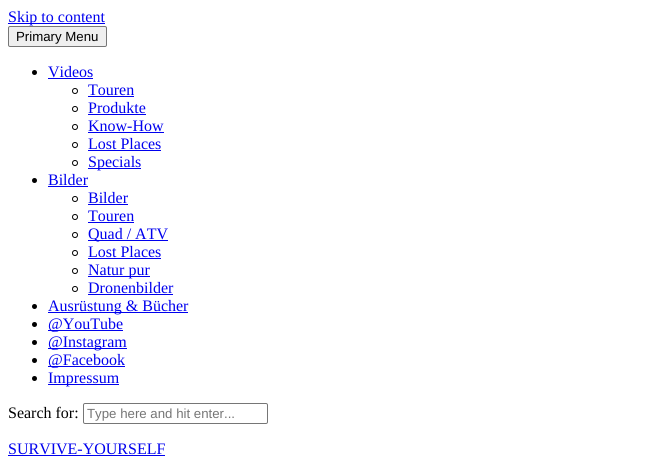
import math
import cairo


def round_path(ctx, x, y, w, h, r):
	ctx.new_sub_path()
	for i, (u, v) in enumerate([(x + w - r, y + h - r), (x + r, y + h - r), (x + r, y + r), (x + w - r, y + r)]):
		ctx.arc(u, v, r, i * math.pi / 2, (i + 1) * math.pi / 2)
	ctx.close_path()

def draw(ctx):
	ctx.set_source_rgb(1, 1, 1)
	ctx.paint()
	ctx.set_source_rgb(0, 0, 0.933)
	ctx.rectangle(8, 23, 97, 1)
	ctx.fill()
	ctx.select_font_face('Liberation Serif')
	ctx.set_font_size(16)
	ctx.move_to(8, 22)
	ctx.show_text('Skip to content')
	ctx.set_source_rgb(0.937, 0.937, 0.937)
	round_path(ctx, 8.5, 26.5, 98, 20, 1.5)
	ctx.fill_preserve()
	ctx.set_source_rgb(0.463, 0.463, 0.463)
	ctx.set_line_width(1)
	ctx.stroke()
	ctx.select_font_face('Liberation Sans')
	ctx.set_font_size(13.25)
	ctx.set_source_rgb(0, 0, 0)
	ctx.move_to(16, 41)
	ctx.show_text('Primary Menu')
	ctx.new_path()
	ctx.arc(34.5, 72.5, 2.5, 0, 2 * math.pi)
	ctx.fill()
	ctx.select_font_face('Liberation Serif')
	ctx.set_font_size(16)
	ctx.set_source_rgb(0, 0, 0.933)
	ctx.move_to(48, 77)
	ctx.show_text('Videos')
	ctx.rectangle(48, 78, 45, 1)
	ctx.fill()
	ctx.arc(75, 91, 2.5, 0, 2 * math.pi)
	ctx.set_source_rgb(0, 0, 0)
	ctx.stroke()
	ctx.set_source_rgb(0, 0, 0.933)
	ctx.move_to(88, 95)
	ctx.show_text('Touren')
	ctx.rectangle(88, 96, 46, 1)
	ctx.fill()
	ctx.arc(75, 109, 2.5, 0, 2 * math.pi)
	ctx.set_source_rgb(0, 0, 0)
	ctx.stroke()
	ctx.set_source_rgb(0, 0, 0.933)
	ctx.move_to(88, 113)
	ctx.show_text('Produkte')
	ctx.rectangle(88, 114, 58, 1)
	ctx.fill()
	ctx.arc(75, 127, 2.5, 0, 2 * math.pi)
	ctx.set_source_rgb(0, 0, 0)
	ctx.stroke()
	ctx.set_source_rgb(0, 0, 0.933)
	ctx.move_to(88, 131)
	ctx.show_text('Know-How')
	ctx.rectangle(88, 132, 76, 1)
	ctx.fill()
	ctx.arc(75, 145, 2.5, 0, 2 * math.pi)
	ctx.set_source_rgb(0, 0, 0)
	ctx.stroke()
	ctx.set_source_rgb(0, 0, 0.933)
	ctx.move_to(88, 149)
	ctx.show_text('Lost Places')
	ctx.rectangle(88, 150, 73, 1)
	ctx.fill()
	ctx.arc(75, 163, 2.5, 0, 2 * math.pi)
	ctx.set_source_rgb(0, 0, 0)
	ctx.stroke()
	ctx.set_source_rgb(0, 0, 0.933)
	ctx.rectangle(88, 168, 53, 1)
	ctx.fill()
	ctx.move_to(88, 167)
	ctx.show_text('Specials')
	ctx.set_source_rgb(0, 0, 0)
	ctx.new_path()
	ctx.arc(34.5, 180.5, 2.5, 0, 2 * math.pi)
	ctx.fill()
	ctx.set_source_rgb(0, 0, 0.933)
	ctx.move_to(48, 185)
	ctx.show_text('Bilder')
	ctx.rectangle(48, 186, 40, 1)
	ctx.fill()
	ctx.arc(75, 199, 2.5, 0, 2 * math.pi)
	ctx.set_source_rgb(0, 0, 0)
	ctx.stroke()
	ctx.set_source_rgb(0, 0, 0.933)
	ctx.move_to(88, 203)
	ctx.show_text('Bilder')
	ctx.rectangle(88, 204, 40, 1)
	ctx.fill()
	ctx.arc(75, 217, 2.5, 0, 2 * math.pi)
	ctx.set_source_rgb(0, 0, 0)
	ctx.stroke()
	ctx.set_source_rgb(0, 0, 0.933)
	ctx.move_to(88, 221)
	ctx.show_text('Touren')
	ctx.rectangle(88, 222, 46, 1)
	ctx.fill()
	ctx.arc(75, 235, 2.5, 0, 2 * math.pi)
	ctx.set_source_rgb(0, 0, 0)
	ctx.stroke()
	ctx.set_source_rgb(0, 0, 0.933)
	ctx.rectangle(88, 240, 80, 1)
	ctx.fill()
	ctx.move_to(88, 239)
	ctx.show_text('Quad / ATV')
	ctx.new_path()
	ctx.arc(75, 253, 2.5, 0, 2 * math.pi)
	ctx.set_source_rgb(0, 0, 0)
	ctx.stroke()
	ctx.set_source_rgb(0, 0, 0.933)
	ctx.move_to(88, 257)
	ctx.show_text('Lost Places')
	ctx.rectangle(88, 258, 73, 1)
	ctx.fill()
	ctx.arc(75, 271, 2.5, 0, 2 * math.pi)
	ctx.set_source_rgb(0, 0, 0)
	ctx.stroke()
	ctx.set_source_rgb(0, 0, 0.933)
	ctx.rectangle(88, 276, 62, 1)
	ctx.fill()
	ctx.move_to(88, 275)
	ctx.show_text('Natur pur')
	ctx.new_path()
	ctx.arc(75, 289, 2.5, 0, 2 * math.pi)
	ctx.set_source_rgb(0, 0, 0)
	ctx.stroke()
	ctx.set_source_rgb(0, 0, 0.933)
	ctx.move_to(88, 293)
	ctx.show_text('Dronenbilder')
	ctx.rectangle(88, 294, 85, 1)
	ctx.fill()
	ctx.set_source_rgb(0, 0, 0)
	ctx.arc(34.5, 306.5, 2.5, 0, 2 * math.pi)
	ctx.fill()
	ctx.set_source_rgb(0, 0, 0.933)
	ctx.rectangle(48, 312, 140, 1)
	ctx.fill()
	ctx.move_to(48, 311)
	ctx.show_text('Ausrüstung & Bücher')
	ctx.set_source_rgb(0, 0, 0)
	ctx.new_path()
	ctx.arc(34.5, 324.5, 2.5, 0, 2 * math.pi)
	ctx.fill()
	ctx.set_source_rgb(0, 0, 0.933)
	ctx.rectangle(48, 330, 75, 1)
	ctx.fill()
	ctx.move_to(48, 329)
	ctx.show_text('@YouTube')
	ctx.set_source_rgb(0, 0, 0)
	ctx.new_path()
	ctx.arc(34.5, 342.5, 2.5, 0, 2 * math.pi)
	ctx.fill()
	ctx.set_source_rgb(0, 0, 0.933)
	ctx.rectangle(48, 348, 79, 1)
	ctx.fill()
	ctx.move_to(48, 347)
	ctx.show_text('@Instagram')
	ctx.set_source_rgb(0, 0, 0)
	ctx.new_path()
	ctx.arc(34.5, 360.5, 2.5, 0, 2 * math.pi)
	ctx.fill()
	ctx.set_source_rgb(0, 0, 0.933)
	ctx.rectangle(48, 366, 77, 1)
	ctx.fill()
	ctx.move_to(48, 365)
	ctx.show_text('@Facebook')
	ctx.set_source_rgb(0, 0, 0)
	ctx.new_path()
	ctx.arc(34.5, 378.5, 2.5, 0, 2 * math.pi)
	ctx.fill()
	ctx.set_source_rgb(0, 0, 0.933)
	ctx.rectangle(48, 384, 71, 1)
	ctx.fill()
	ctx.move_to(48, 383)
	ctx.show_text('Impressum')
	ctx.set_source_rgb(0, 0, 0)
	ctx.move_to(8, 418)
	ctx.show_text('Search for:')
	round_path(ctx, 83.5, 403.5, 184, 20, 1.5)
	ctx.set_source_rgb(0.463, 0.463, 0.463)
	ctx.stroke()
	ctx.select_font_face('Liberation Sans')
	ctx.set_font_size(13.25)
	ctx.set_source_rgb(0.459, 0.459, 0.459)
	ctx.move_to(87, 418)
	ctx.show_text('Type here and hit enter...')
	ctx.select_font_face('Liberation Serif')
	ctx.set_font_size(16)
	ctx.set_source_rgb(0, 0, 0.933)
	ctx.move_to(8, 454)
	ctx.show_text('SURVIVE-YOURSELF')
	ctx.rectangle(8, 455, 157, 1)
	ctx.fill()


surface = cairo.ImageSurface(cairo.FORMAT_RGB24, 645, 461)
ctx = cairo.Context(surface)
options = cairo.FontOptions()
options.set_hint_metrics(cairo.HINT_METRICS_OFF)
options.set_hint_style(cairo.HINT_STYLE_NONE)
ctx.set_font_options(options)
ctx.set_miter_limit(4)
draw(ctx)
surface.write_to_png('image.png')
